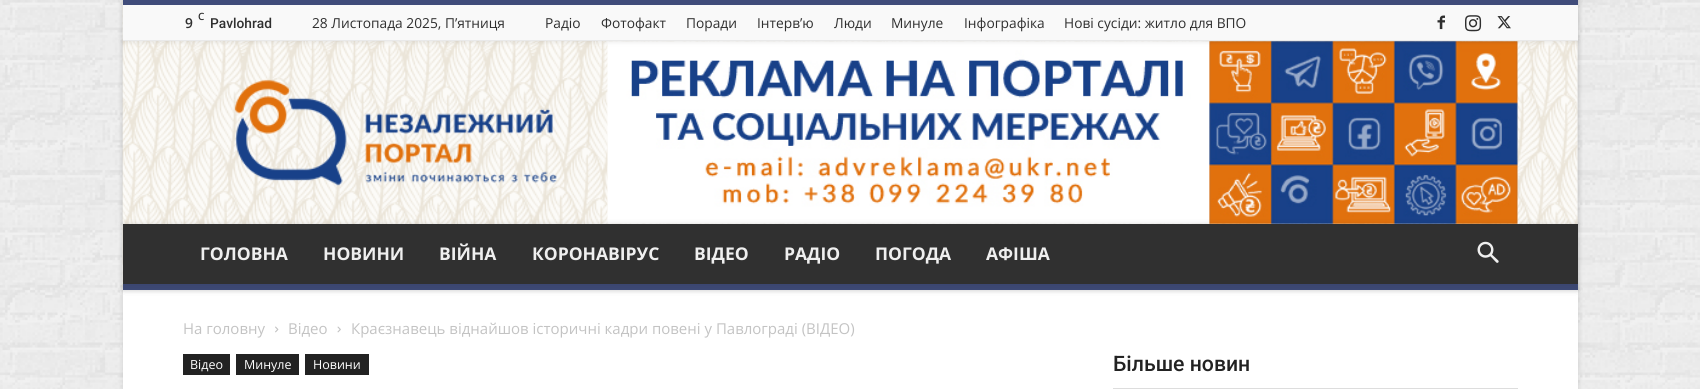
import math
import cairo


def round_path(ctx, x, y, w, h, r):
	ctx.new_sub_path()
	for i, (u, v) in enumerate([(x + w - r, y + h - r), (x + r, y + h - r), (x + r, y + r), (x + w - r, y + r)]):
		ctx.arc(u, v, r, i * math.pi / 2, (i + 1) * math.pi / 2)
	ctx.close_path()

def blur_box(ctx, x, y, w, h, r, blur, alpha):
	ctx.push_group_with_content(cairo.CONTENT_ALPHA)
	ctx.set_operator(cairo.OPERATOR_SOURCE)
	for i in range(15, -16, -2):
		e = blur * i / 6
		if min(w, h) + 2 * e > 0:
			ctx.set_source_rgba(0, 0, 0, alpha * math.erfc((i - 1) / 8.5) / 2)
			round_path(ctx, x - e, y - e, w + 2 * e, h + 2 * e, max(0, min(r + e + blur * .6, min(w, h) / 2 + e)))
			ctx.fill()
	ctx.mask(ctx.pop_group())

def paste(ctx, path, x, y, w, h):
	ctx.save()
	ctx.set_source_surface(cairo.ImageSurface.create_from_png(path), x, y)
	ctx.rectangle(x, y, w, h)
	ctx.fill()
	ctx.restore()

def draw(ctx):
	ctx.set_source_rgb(1, 1, 1)
	ctx.paint()
	paste(ctx, 'media/1.png', 0, 0, 1700, 389)
	ctx.set_source_rgb(0, 0, 0)
	blur_box(ctx, 123, 290, 1455, 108, 0, 3, 0.12)
	ctx.set_source_rgb(1, 1, 1)
	ctx.rectangle(123, 290, 1455, 99)
	ctx.fill()
	ctx.set_source_rgb(0, 0, 0)
	blur_box(ctx, 123, 0, 1455, 290, 0, 3, 0.12)
	paste(ctx, 'media/2.png', 122, 0, 1456, 290)
	ctx.save()
	ctx.set_fill_rule(cairo.FILL_RULE_EVEN_ODD)
	ctx.new_path()
	ctx.move_to(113, 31)
	ctx.line_to(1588, 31)
	ctx.line_to(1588, 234)
	ctx.line_to(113, 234)
	ctx.close_path()
	ctx.move_to(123, 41)
	ctx.line_to(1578, 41)
	ctx.line_to(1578, 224)
	ctx.line_to(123, 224)
	ctx.close_path()
	ctx.clip()
	blur_box(ctx, 123, 41, 1455, 183, 0, 3, 0.12)
	ctx.restore()
	paste(ctx, 'media/7.png', 607, 41, 911, 183)
	blur_box(ctx, 123, 0, 1455, 41, 0, 3, 0.12)
	ctx.set_source_rgb(0.976, 0.976, 0.976)
	ctx.rectangle(123, 5, 1455, 35)
	ctx.fill()
	ctx.set_source_rgb(0.251, 0.298, 0.478)
	ctx.rectangle(123, 0, 1455, 5)
	ctx.fill()
	ctx.set_source_rgb(0.914, 0.914, 0.914)
	ctx.rectangle(123, 40, 1455, 1)
	ctx.fill()
	ctx.select_font_face('Open Sans SemiBold')
	ctx.set_font_size(10)
	ctx.set_source_rgb(0.184, 0.184, 0.184)
	ctx.move_to(198, 20)
	ctx.show_text('C')
	ctx.set_font_size(13.75)
	ctx.move_to(185, 28)
	ctx.show_text('9')
	ctx.select_font_face('Roboto Medium')
	ctx.move_to(210, 28)
	ctx.show_text('Pavlohrad')
	ctx.select_font_face('Open Sans')
	for x, y, s in [
		(312, 28, '28 Листопада 2025, П’ятниця'),
		(545, 28, 'Радіо'),
		(601, 28, 'Фотофакт'),
		(686, 28, 'Поради'),
		(757, 28, 'Інтерв’ю'),
		(834, 28, 'Люди'),
		(891, 28, 'Минуле'),
		(964, 28, 'Інфографіка'),
		(1064, 28, 'Нові сусіди: житло для ВПО'),
	]:
		ctx.move_to(x, y)
		ctx.show_text(s)
	paste(ctx, 'media/3.png', 1437, 15, 8, 15)
	paste(ctx, 'media/4.png', 1465, 15, 17, 17)
	paste(ctx, 'media/5.png', 1497, 16, 14, 13)
	paste(ctx, 'media/6.png', 234, 79, 323, 107)
	ctx.set_source_rgb(0, 0, 0)
	blur_box(ctx, 123, 224, 1455, 66, 0, 3, 0.12)
	ctx.set_source_rgb(0.188, 0.188, 0.188)
	ctx.rectangle(123, 224, 1455, 60)
	ctx.fill()
	ctx.select_font_face('Open Sans', cairo.FONT_SLANT_NORMAL, cairo.FONT_WEIGHT_BOLD)
	ctx.set_font_size(17.5)
	ctx.set_source_rgb(0.937, 0.937, 0.937)
	for x, y, s in [
		(200, 260, 'ГОЛОВНА'),
		(323, 260, 'НОВИНИ'),
		(439, 260, 'ВІЙНА'),
		(532, 260, 'КОРОНАВІРУС'),
		(694, 260, 'ВІДЕО'),
		(784, 260, 'РАДІО'),
		(875, 260, 'ПОГОДА'),
		(986, 260, 'АФІША'),
	]:
		ctx.move_to(x, y)
		ctx.show_text(s)
	paste(ctx, 'media/8.png', 1477, 241, 22, 22)
	ctx.set_source_rgb(0.251, 0.298, 0.478)
	ctx.rectangle(123, 284, 1455, 6)
	ctx.fill()
	paste(ctx, 'media/9.png', 122, 284, 1456, 6)
	ctx.select_font_face('Open Sans')
	ctx.set_font_size(15)
	ctx.set_source_rgb(0.765, 0.765, 0.765)
	ctx.move_to(183, 334)
	ctx.show_text('На головну')
	paste(ctx, 'media/10.png', 275, 326, 4, 7)
	ctx.move_to(288, 334)
	ctx.show_text('Відео')
	paste(ctx, 'media/11.png', 337, 326, 4, 7)
	ctx.move_to(351, 334)
	ctx.show_text('Краєзнавець віднайшов історичні кадри повені у Павлограді (ВІДЕО)')
	ctx.set_source_rgb(0.133, 0.133, 0.133)
	ctx.rectangle(183, 354, 47, 21)
	ctx.fill()
	ctx.set_font_size(12.5)
	ctx.set_source_rgb(1, 1, 1)
	ctx.move_to(190, 369)
	ctx.show_text('Відео')
	ctx.set_source_rgb(0.133, 0.133, 0.133)
	ctx.rectangle(236, 354, 63, 21)
	ctx.fill()
	ctx.set_source_rgb(1, 1, 1)
	ctx.move_to(244, 369)
	ctx.show_text('Минуле')
	ctx.set_source_rgb(0.133, 0.133, 0.133)
	ctx.rectangle(305, 354, 64, 21)
	ctx.fill()
	ctx.set_source_rgb(1, 1, 1)
	ctx.move_to(313, 369)
	ctx.show_text('Новини')
	ctx.select_font_face('Roboto Medium')
	ctx.set_font_size(21.25)
	ctx.set_source_rgb(0.133, 0.133, 0.133)
	ctx.move_to(1113, 371)
	ctx.show_text('Більше новин')
	ctx.set_source_rgb(0.867, 0.867, 0.867)
	ctx.rectangle(1113, 388, 405, 1)
	ctx.fill()


surface = cairo.ImageSurface(cairo.FORMAT_RGB24, 1700, 389)
ctx = cairo.Context(surface)
options = cairo.FontOptions()
options.set_hint_metrics(cairo.HINT_METRICS_OFF)
options.set_hint_style(cairo.HINT_STYLE_NONE)
ctx.set_font_options(options)
ctx.set_miter_limit(4)
draw(ctx)
surface.write_to_png('image.png')
